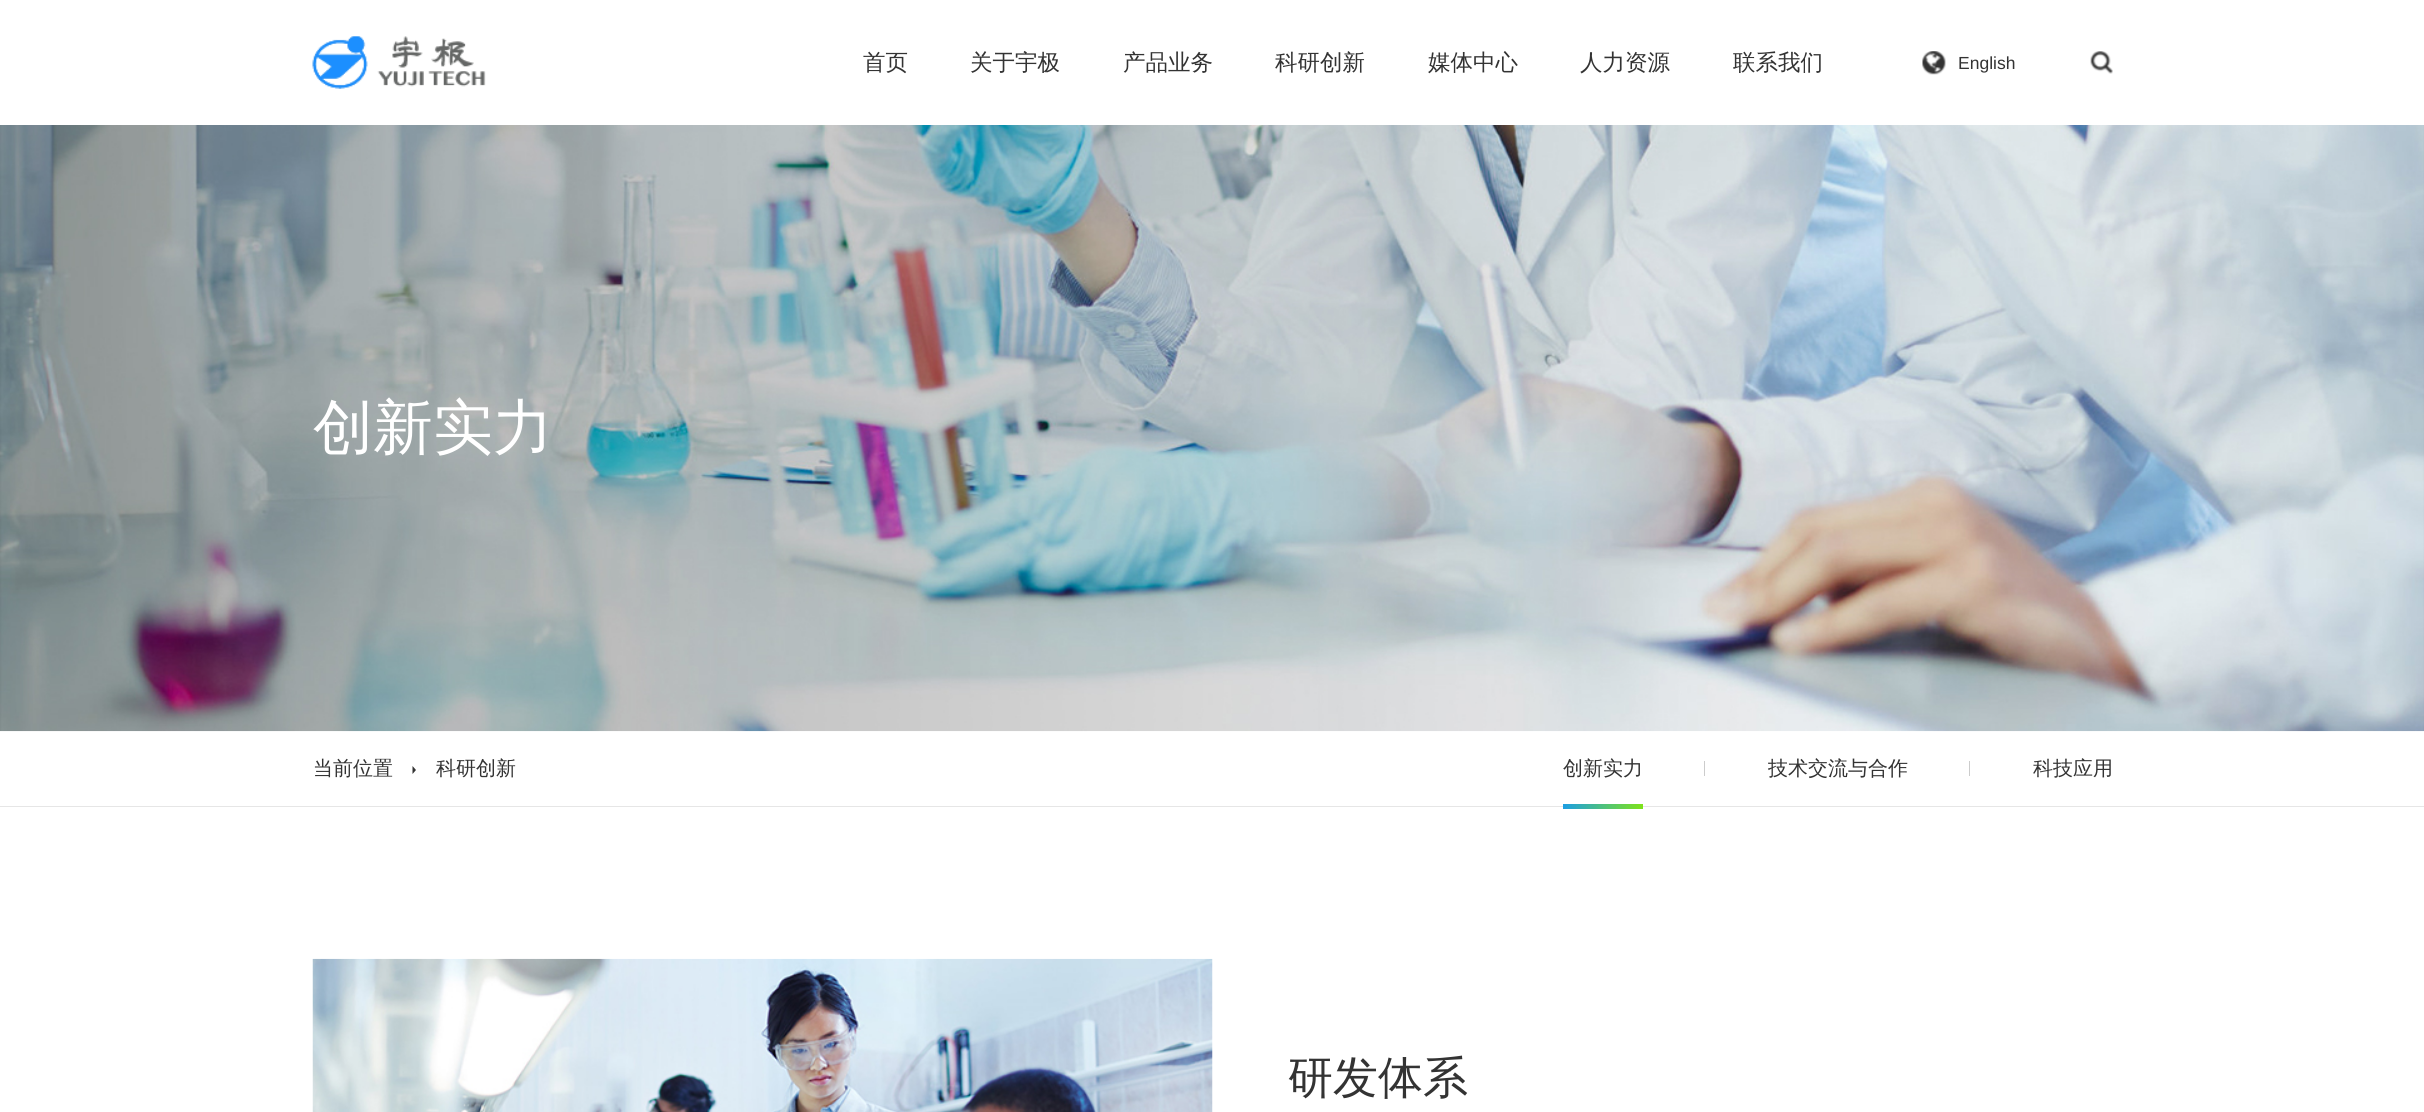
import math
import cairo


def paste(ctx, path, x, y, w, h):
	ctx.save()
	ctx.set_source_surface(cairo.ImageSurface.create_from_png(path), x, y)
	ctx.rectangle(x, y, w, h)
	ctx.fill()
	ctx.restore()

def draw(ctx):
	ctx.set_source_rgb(1, 1, 1)
	ctx.paint()
	paste(ctx, 'media/1.png', 312, 36, 174, 53)
	ctx.select_font_face('WenQuanYi Zen Hei Medium')
	ctx.set_font_size(22.5)
	ctx.set_source_rgb(0.2, 0.2, 0.2)
	for x, y, s in [
		(863, 70, '首页'),
		(970, 70, '关于宇极'),
		(1123, 70, '产品业务'),
		(1275, 70, '科研创新'),
		(1428, 70, '媒体中心'),
		(1580, 70, '人力资源'),
		(1733, 70, '联系我们'),
	]:
		ctx.move_to(x, y)
		ctx.show_text(s)
	paste(ctx, 'media/2.png', 1922, 51, 24, 24)
	ctx.select_font_face('Liberation Sans')
	ctx.set_font_size(17.5)
	ctx.move_to(1958, 69)
	ctx.show_text('English')
	paste(ctx, 'media/3.png', 2090, 51, 23, 23)
	paste(ctx, 'media/4.png', 0, 125, 2424, 607)
	ctx.select_font_face('WenQuanYi Zen Hei Medium')
	ctx.set_font_size(60)
	ctx.set_source_rgb(1, 1, 1)
	ctx.move_to(313, 448)
	ctx.show_text('创新实力')
	ctx.set_source_rgb(0.902, 0.902, 0.902)
	ctx.rectangle(0, 806, 2424, 1)
	ctx.fill()
	ctx.set_font_size(20)
	ctx.set_source_rgb(0.2, 0.2, 0.2)
	ctx.move_to(313, 775)
	ctx.show_text('当前位置')
	ctx.new_path()
	ctx.move_to(412.5, 774)
	ctx.line_to(412.5, 766)
	ctx.line_to(416, 770)
	ctx.close_path()
	ctx.fill()
	ctx.move_to(436, 775)
	ctx.show_text('科研创新')
	ctx.move_to(1563, 775)
	ctx.show_text('创新实力')
	ctx.set_source_rgb(0.8, 0.8, 0.8)
	ctx.rectangle(1704, 761, 1, 15)
	ctx.fill()
	gradient = cairo.LinearGradient(1563, 806, 1643, 806)
	gradient.add_color_stop_rgba(0, 0.11, 0.62, 0.89, 1)
	gradient.add_color_stop_rgba(1, 0.494, 0.89, 0.098, 1)
	ctx.set_source(gradient)
	ctx.rectangle(1563, 804, 80, 5)
	ctx.fill()
	ctx.set_source_rgb(0.2, 0.2, 0.2)
	ctx.move_to(1768, 775)
	ctx.show_text('技术交流与合作')
	ctx.set_source_rgb(0.8, 0.8, 0.8)
	ctx.rectangle(1969, 761, 1, 15)
	ctx.fill()
	ctx.set_source_rgb(0.2, 0.2, 0.2)
	ctx.move_to(2033, 775)
	ctx.show_text('科技应用')
	paste(ctx, 'media/5.png', 312, 958, 901, 154)
	ctx.set_font_size(45)
	ctx.move_to(1288, 1093)
	ctx.show_text('研发体系')


surface = cairo.ImageSurface(cairo.FORMAT_RGB24, 2424, 1112)
ctx = cairo.Context(surface)
options = cairo.FontOptions()
options.set_hint_metrics(cairo.HINT_METRICS_OFF)
options.set_hint_style(cairo.HINT_STYLE_NONE)
ctx.set_font_options(options)
ctx.set_miter_limit(4)
draw(ctx)
surface.write_to_png('image.png')
